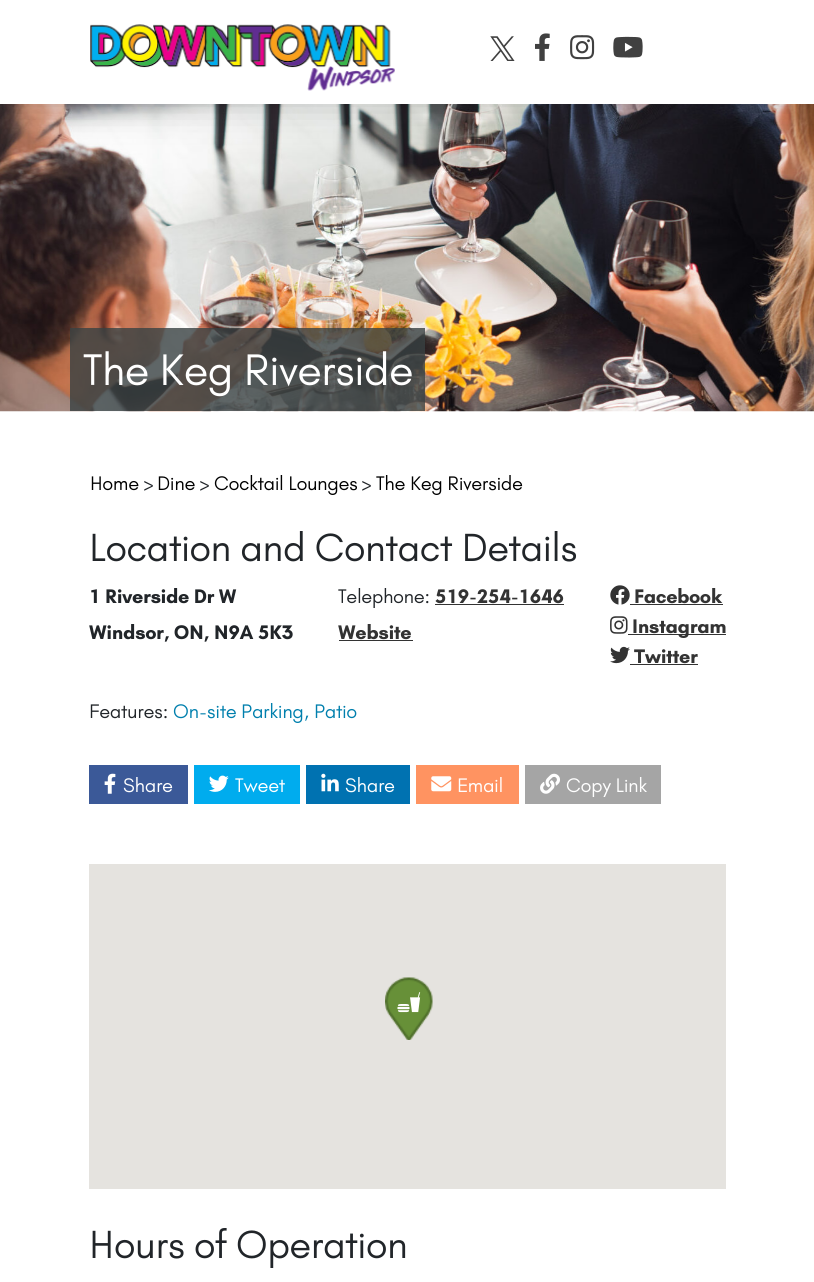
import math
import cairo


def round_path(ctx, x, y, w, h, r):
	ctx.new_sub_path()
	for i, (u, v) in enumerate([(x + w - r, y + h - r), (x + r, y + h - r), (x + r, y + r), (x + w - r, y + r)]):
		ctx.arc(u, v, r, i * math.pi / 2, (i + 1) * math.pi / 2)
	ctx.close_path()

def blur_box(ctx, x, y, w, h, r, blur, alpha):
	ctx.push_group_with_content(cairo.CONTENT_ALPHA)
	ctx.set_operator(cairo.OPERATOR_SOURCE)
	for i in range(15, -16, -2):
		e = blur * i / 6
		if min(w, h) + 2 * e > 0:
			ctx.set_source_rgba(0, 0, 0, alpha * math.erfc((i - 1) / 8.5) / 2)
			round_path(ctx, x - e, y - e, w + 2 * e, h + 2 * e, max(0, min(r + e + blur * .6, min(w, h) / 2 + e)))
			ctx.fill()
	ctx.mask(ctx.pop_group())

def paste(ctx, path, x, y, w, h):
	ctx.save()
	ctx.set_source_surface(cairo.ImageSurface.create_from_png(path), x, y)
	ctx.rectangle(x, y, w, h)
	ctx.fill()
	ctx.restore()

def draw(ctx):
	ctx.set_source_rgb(1, 1, 1)
	ctx.paint()
	paste(ctx, 'media/6.png', 0, 104, 814, 308)
	ctx.set_source_rgb(0, 0, 0)
	blur_box(ctx, 4, 0, 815, 104, 0, 19, 0.2)
	ctx.set_source_rgb(1, 1, 1)
	ctx.rectangle(0, 0, 814, 104)
	ctx.fill()
	paste(ctx, 'media/1.png', 90, 24, 305, 67)
	paste(ctx, 'media/2.png', 490, 36, 25, 25)
	paste(ctx, 'media/3.png', 535, 33, 15, 28)
	paste(ctx, 'media/4.png', 570, 35, 25, 25)
	paste(ctx, 'media/5.png', 613, 36, 30, 22)
	ctx.set_source_rgba(0.22, 0.255, 0.259, 0.8)
	ctx.rectangle(70, 328, 355, 83)
	ctx.fill()
	ctx.select_font_face('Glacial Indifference')
	ctx.set_font_size(45)
	ctx.set_source_rgb(1, 1, 1)
	ctx.move_to(83, 385)
	ctx.show_text('The Keg Riverside')
	ctx.set_font_size(20)
	ctx.set_source_rgb(0, 0, 0)
	ctx.move_to(90, 490)
	ctx.show_text('Home')
	ctx.set_source_rgb(0.129, 0.145, 0.161)
	ctx.move_to(143, 490)
	ctx.show_text('>')
	ctx.set_source_rgb(0, 0, 0)
	ctx.move_to(157, 490)
	ctx.show_text('Dine')
	ctx.set_source_rgb(0.129, 0.145, 0.161)
	ctx.move_to(199, 490)
	ctx.show_text('>')
	ctx.set_source_rgb(0, 0, 0)
	ctx.move_to(214, 490)
	ctx.show_text('Cocktail Lounges')
	ctx.set_source_rgb(0.129, 0.145, 0.161)
	ctx.move_to(361, 490)
	ctx.show_text('>')
	ctx.set_source_rgb(0, 0, 0)
	ctx.move_to(376, 490)
	ctx.show_text('The Keg Riverside')
	ctx.set_font_size(40)
	ctx.set_source_rgb(0.129, 0.145, 0.161)
	ctx.move_to(89, 561)
	ctx.show_text('Location and Contact Details')
	ctx.select_font_face('Glacial Indifference', cairo.FONT_SLANT_NORMAL, cairo.FONT_WEIGHT_BOLD)
	ctx.set_font_size(20)
	ctx.move_to(89, 603)
	ctx.show_text('1 Riverside Dr W')
	ctx.move_to(89, 639)
	ctx.show_text('Windsor, ON, N9A 5K3')
	ctx.select_font_face('Glacial Indifference')
	ctx.move_to(338, 603)
	ctx.show_text('Telephone:')
	ctx.select_font_face('Glacial Indifference', cairo.FONT_SLANT_NORMAL, cairo.FONT_WEIGHT_BOLD)
	ctx.set_source_rgb(0.2, 0.2, 0.2)
	ctx.move_to(435, 603)
	ctx.show_text('519-254-1646')
	ctx.rectangle(435, 604, 129, 1)
	ctx.fill()
	ctx.move_to(338, 639)
	ctx.show_text('Website')
	ctx.rectangle(339, 640, 74, 1)
	ctx.fill()
	paste(ctx, 'media/7.png', 610, 585, 20, 20)
	ctx.move_to(634, 603)
	ctx.show_text('Facebook')
	ctx.rectangle(630, 604, 93, 1)
	ctx.fill()
	paste(ctx, 'media/8.png', 610, 616, 18, 18)
	ctx.rectangle(628, 634, 98, 1)
	ctx.fill()
	ctx.move_to(632, 633)
	ctx.show_text('Instagram')
	paste(ctx, 'media/9.png', 610, 646, 20, 18)
	ctx.move_to(634, 663)
	ctx.show_text('Twitter')
	ctx.rectangle(630, 664, 68, 1)
	ctx.fill()
	ctx.select_font_face('Glacial Indifference')
	ctx.set_source_rgb(0.129, 0.145, 0.161)
	ctx.move_to(89, 718)
	ctx.show_text('Features:')
	ctx.set_source_rgb(0, 0.498, 0.678)
	ctx.move_to(173, 718)
	ctx.show_text('On-site Parking, Patio')
	ctx.set_source_rgb(0.231, 0.349, 0.596)
	ctx.rectangle(89, 765, 99, 39)
	ctx.fill()
	paste(ctx, 'media/10.png', 104, 773, 12, 21)
	ctx.set_source_rgb(1, 1, 1)
	ctx.move_to(123, 792)
	ctx.show_text('Share')
	ctx.set_source_rgb(0, 0.675, 0.933)
	ctx.rectangle(194, 765, 106, 39)
	ctx.fill()
	paste(ctx, 'media/11.png', 209, 775, 20, 17)
	ctx.set_source_rgb(1, 1, 1)
	ctx.move_to(235, 792)
	ctx.show_text('Tweet')
	ctx.set_source_rgb(0, 0.447, 0.694)
	ctx.rectangle(306, 765, 104, 39)
	ctx.fill()
	paste(ctx, 'media/12.png', 321, 773, 18, 19)
	ctx.set_source_rgb(1, 1, 1)
	ctx.move_to(345, 792)
	ctx.show_text('Share')
	ctx.set_source_rgb(1, 0.576, 0.38)
	ctx.rectangle(416, 765, 103, 39)
	ctx.fill()
	paste(ctx, 'media/13.png', 431, 776, 21, 16)
	ctx.set_source_rgb(1, 1, 1)
	ctx.move_to(457, 792)
	ctx.show_text('Email')
	ctx.set_source_rgb(0.647, 0.647, 0.647)
	ctx.rectangle(525, 765, 136, 39)
	ctx.fill()
	paste(ctx, 'media/14.png', 540, 773, 20, 21)
	ctx.set_source_rgb(1, 1, 1)
	ctx.move_to(566, 792)
	ctx.show_text('Copy Link')
	ctx.set_source_rgb(0.898, 0.89, 0.875)
	ctx.rectangle(89, 864, 637, 325)
	ctx.fill()
	paste(ctx, 'media/15.png', 385, 977, 48, 63)
	paste(ctx, 'media/16.png', 397, 992, 24, 21)
	ctx.set_font_size(40)
	ctx.set_source_rgb(0.129, 0.145, 0.161)
	ctx.move_to(89, 1258)
	ctx.show_text('Hours of Operation')


surface = cairo.ImageSurface(cairo.FORMAT_RGB24, 814, 1282)
ctx = cairo.Context(surface)
options = cairo.FontOptions()
options.set_hint_metrics(cairo.HINT_METRICS_OFF)
options.set_hint_style(cairo.HINT_STYLE_NONE)
ctx.set_font_options(options)
ctx.set_miter_limit(4)
draw(ctx)
surface.write_to_png('image.png')
